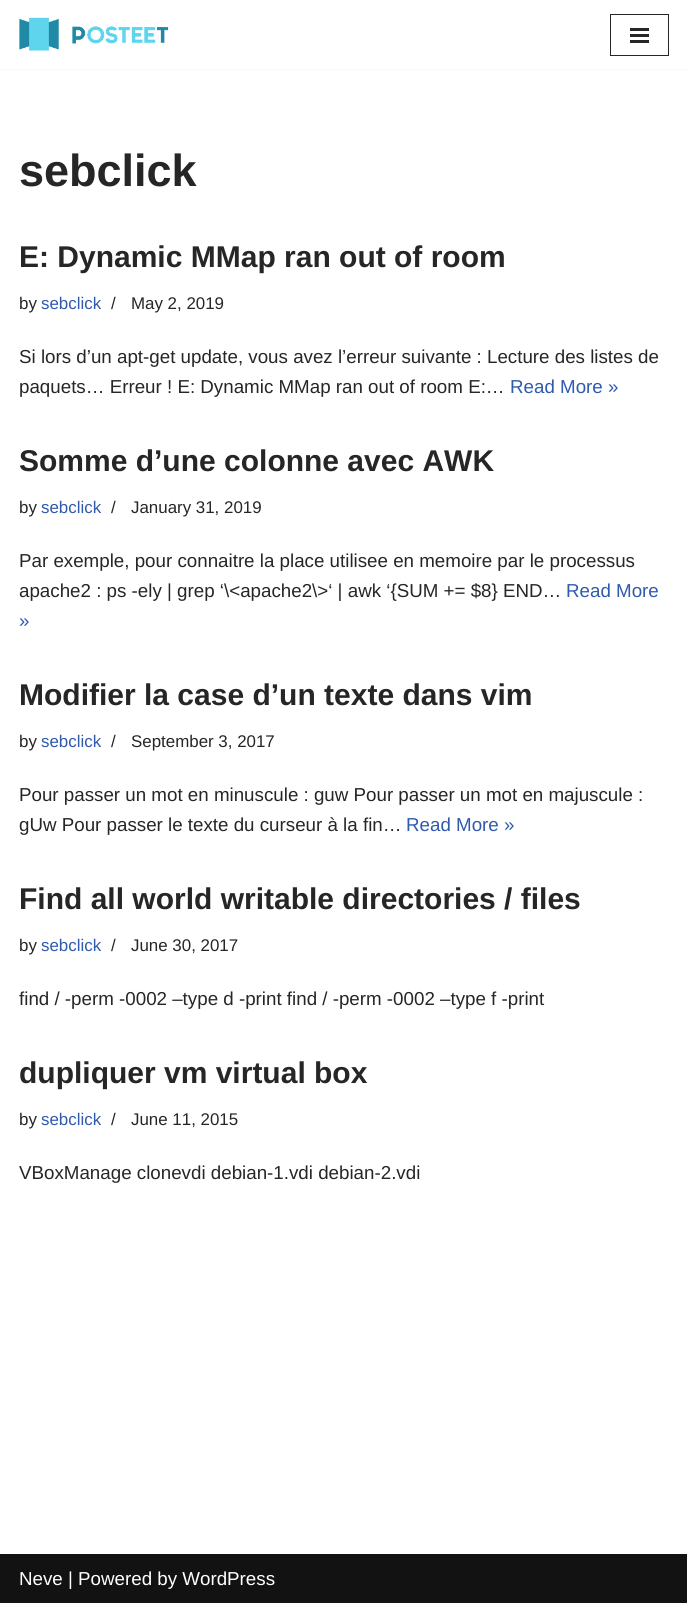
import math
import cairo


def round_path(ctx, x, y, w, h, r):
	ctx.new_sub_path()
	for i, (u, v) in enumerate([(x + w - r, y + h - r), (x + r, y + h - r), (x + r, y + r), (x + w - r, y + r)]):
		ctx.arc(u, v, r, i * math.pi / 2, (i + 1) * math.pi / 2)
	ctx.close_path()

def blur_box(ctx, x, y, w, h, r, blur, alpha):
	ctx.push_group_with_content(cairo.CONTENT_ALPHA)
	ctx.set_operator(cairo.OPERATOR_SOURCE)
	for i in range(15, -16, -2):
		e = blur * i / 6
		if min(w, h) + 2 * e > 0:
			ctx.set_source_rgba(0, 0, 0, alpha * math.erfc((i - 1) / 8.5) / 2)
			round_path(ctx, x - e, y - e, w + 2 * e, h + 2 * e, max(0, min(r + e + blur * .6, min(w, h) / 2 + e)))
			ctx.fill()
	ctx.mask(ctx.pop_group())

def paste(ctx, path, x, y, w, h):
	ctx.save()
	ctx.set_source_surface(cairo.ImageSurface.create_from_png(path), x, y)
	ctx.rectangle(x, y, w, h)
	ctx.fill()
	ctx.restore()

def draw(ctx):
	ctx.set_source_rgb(1, 1, 1)
	ctx.paint()
	ctx.set_source_rgb(0, 0, 0)
	blur_box(ctx, 0, -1, 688, 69, 0, 2, 0.1)
	ctx.set_source_rgb(1, 1, 1)
	ctx.rectangle(0, 0, 687, 69)
	ctx.fill()
	paste(ctx, 'media/1.png', 19, 17, 150, 34)
	ctx.rectangle(610.5, 14.5, 58, 41)
	ctx.set_source_rgb(0.153, 0.149, 0.149)
	ctx.set_line_width(1)
	ctx.stroke()
	ctx.rectangle(630, 28, 19, 3)
	ctx.rectangle(630, 34, 19, 3)
	ctx.rectangle(630, 40, 19, 3)
	ctx.fill()
	ctx.select_font_face('Liberation Sans', cairo.FONT_SLANT_NORMAL, cairo.FONT_WEIGHT_BOLD)
	ctx.set_font_size(45)
	ctx.move_to(19, 186)
	ctx.show_text('sebclick')
	ctx.set_font_size(30)
	ctx.move_to(19, 267)
	ctx.show_text('E: Dynamic MMap ran out of room')
	ctx.select_font_face('Liberation Sans')
	ctx.set_font_size(16.9)
	ctx.move_to(19, 309)
	ctx.show_text('by')
	ctx.set_source_rgb(0.184, 0.353, 0.682)
	ctx.move_to(41, 309)
	ctx.show_text('sebclick')
	ctx.set_source_rgb(0.153, 0.149, 0.149)
	ctx.move_to(111, 309)
	ctx.show_text('/')
	ctx.move_to(131, 309)
	ctx.show_text('May 2, 2019')
	ctx.set_font_size(18.75)
	ctx.move_to(19, 363)
	ctx.show_text('Si lors d’un apt-get update, vous avez l’erreur suivante : Lecture des listes de')
	ctx.move_to(19, 393)
	ctx.show_text('paquets… Erreur ! E: Dynamic MMap ran out of room E:…')
	ctx.set_source_rgb(0.184, 0.353, 0.682)
	ctx.move_to(510, 393)
	ctx.show_text('Read More »')
	ctx.select_font_face('Liberation Sans', cairo.FONT_SLANT_NORMAL, cairo.FONT_WEIGHT_BOLD)
	ctx.set_font_size(30)
	ctx.set_source_rgb(0.153, 0.149, 0.149)
	ctx.move_to(19, 471)
	ctx.show_text('Somme d’une colonne avec AWK')
	ctx.select_font_face('Liberation Sans')
	ctx.set_font_size(16.9)
	ctx.move_to(19, 513)
	ctx.show_text('by')
	ctx.set_source_rgb(0.184, 0.353, 0.682)
	ctx.move_to(41, 513)
	ctx.show_text('sebclick')
	ctx.set_source_rgb(0.153, 0.149, 0.149)
	ctx.move_to(111, 513)
	ctx.show_text('/')
	ctx.move_to(131, 513)
	ctx.show_text('January 31, 2019')
	ctx.set_font_size(18.75)
	ctx.move_to(19, 567)
	ctx.show_text('Par exemple, pour connaitre la place utilisee en memoire par le processus')
	ctx.move_to(19, 597)
	ctx.show_text('apache2 : ps -ely | grep ‘\\<apache2\\>‘ | awk ‘{SUM += $8} END…')
	ctx.set_source_rgb(0.184, 0.353, 0.682)
	ctx.move_to(566, 597)
	ctx.show_text('Read More')
	ctx.move_to(19, 627)
	ctx.show_text('»')
	ctx.select_font_face('Liberation Sans', cairo.FONT_SLANT_NORMAL, cairo.FONT_WEIGHT_BOLD)
	ctx.set_font_size(30)
	ctx.set_source_rgb(0.153, 0.149, 0.149)
	ctx.move_to(19, 705)
	ctx.show_text('Modifier la case d’un texte dans vim')
	ctx.select_font_face('Liberation Sans')
	ctx.set_font_size(16.9)
	ctx.move_to(19, 747)
	ctx.show_text('by')
	ctx.set_source_rgb(0.184, 0.353, 0.682)
	ctx.move_to(41, 747)
	ctx.show_text('sebclick')
	ctx.set_source_rgb(0.153, 0.149, 0.149)
	ctx.move_to(111, 747)
	ctx.show_text('/')
	ctx.move_to(131, 747)
	ctx.show_text('September 3, 2017')
	ctx.set_font_size(18.75)
	ctx.move_to(19, 801)
	ctx.show_text('Pour passer un mot en minuscule : guw Pour passer un mot en majuscule :')
	ctx.move_to(19, 831)
	ctx.show_text('gUw Pour passer le texte du curseur à la fin…')
	ctx.set_source_rgb(0.184, 0.353, 0.682)
	ctx.move_to(406, 831)
	ctx.show_text('Read More »')
	ctx.select_font_face('Liberation Sans', cairo.FONT_SLANT_NORMAL, cairo.FONT_WEIGHT_BOLD)
	ctx.set_font_size(30)
	ctx.set_source_rgb(0.153, 0.149, 0.149)
	ctx.move_to(19, 909)
	ctx.show_text('Find all world writable directories / files')
	ctx.select_font_face('Liberation Sans')
	ctx.set_font_size(16.9)
	ctx.move_to(19, 951)
	ctx.show_text('by')
	ctx.set_source_rgb(0.184, 0.353, 0.682)
	ctx.move_to(41, 951)
	ctx.show_text('sebclick')
	ctx.set_source_rgb(0.153, 0.149, 0.149)
	ctx.move_to(111, 951)
	ctx.show_text('/')
	ctx.move_to(131, 951)
	ctx.show_text('June 30, 2017')
	ctx.set_font_size(18.75)
	ctx.move_to(19, 1005)
	ctx.show_text('find / -perm -0002 –type d -print find / -perm -0002 –type f -print')
	ctx.select_font_face('Liberation Sans', cairo.FONT_SLANT_NORMAL, cairo.FONT_WEIGHT_BOLD)
	ctx.set_font_size(30)
	ctx.move_to(19, 1083)
	ctx.show_text('dupliquer vm virtual box')
	ctx.select_font_face('Liberation Sans')
	ctx.set_font_size(16.9)
	ctx.move_to(19, 1125)
	ctx.show_text('by')
	ctx.set_source_rgb(0.184, 0.353, 0.682)
	ctx.move_to(41, 1125)
	ctx.show_text('sebclick')
	ctx.set_source_rgb(0.153, 0.149, 0.149)
	ctx.move_to(111, 1125)
	ctx.show_text('/')
	ctx.move_to(131, 1125)
	ctx.show_text('June 11, 2015')
	ctx.set_font_size(18.75)
	ctx.move_to(19, 1179)
	ctx.show_text('VBoxManage clonevdi debian-1.vdi debian-2.vdi')
	ctx.set_source_rgb(0.071, 0.071, 0.071)
	ctx.rectangle(0, 1554, 687, 49)
	ctx.fill()
	ctx.set_source_rgb(1, 1, 1)
	ctx.move_to(19, 1585)
	ctx.show_text('Neve | Powered by WordPress')


surface = cairo.ImageSurface(cairo.FORMAT_RGB24, 687, 1603)
ctx = cairo.Context(surface)
options = cairo.FontOptions()
options.set_hint_metrics(cairo.HINT_METRICS_OFF)
options.set_hint_style(cairo.HINT_STYLE_NONE)
ctx.set_font_options(options)
ctx.set_miter_limit(4)
draw(ctx)
surface.write_to_png('image.png')
